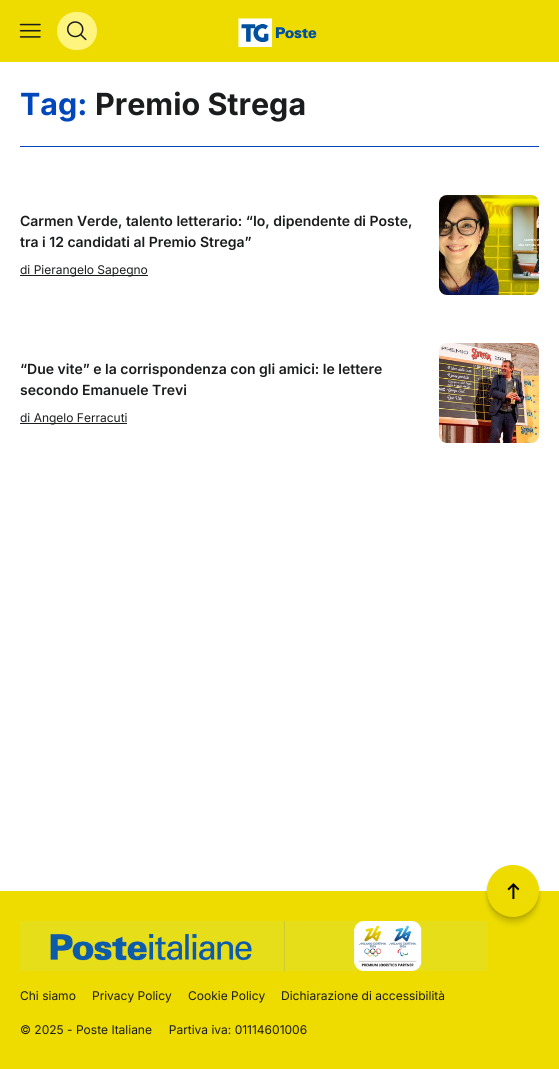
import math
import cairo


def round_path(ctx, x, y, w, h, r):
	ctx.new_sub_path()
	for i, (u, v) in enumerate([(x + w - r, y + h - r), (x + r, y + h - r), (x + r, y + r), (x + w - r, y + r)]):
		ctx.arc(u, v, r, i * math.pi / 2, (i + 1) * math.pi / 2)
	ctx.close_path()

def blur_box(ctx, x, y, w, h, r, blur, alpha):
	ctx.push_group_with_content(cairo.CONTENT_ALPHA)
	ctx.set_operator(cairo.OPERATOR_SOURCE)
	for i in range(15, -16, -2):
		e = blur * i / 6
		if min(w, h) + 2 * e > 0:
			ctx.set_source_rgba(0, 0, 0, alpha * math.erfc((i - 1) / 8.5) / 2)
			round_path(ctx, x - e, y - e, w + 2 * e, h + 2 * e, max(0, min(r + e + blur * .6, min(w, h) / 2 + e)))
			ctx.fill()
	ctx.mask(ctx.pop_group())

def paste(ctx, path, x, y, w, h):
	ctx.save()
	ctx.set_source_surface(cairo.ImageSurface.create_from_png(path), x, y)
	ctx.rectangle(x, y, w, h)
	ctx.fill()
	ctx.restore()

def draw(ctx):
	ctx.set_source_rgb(1, 1, 1)
	ctx.paint()
	ctx.set_source_rgb(0.933, 0.863, 0)
	ctx.rectangle(0, 0, 559, 62)
	ctx.fill()
	paste(ctx, 'media/1.png', 19, 23, 22, 15)
	ctx.set_source_rgb(1, 0.957, 0.494)
	round_path(ctx, 57, 12, 40, 38, 19)
	ctx.fill()
	paste(ctx, 'media/2.png', 67, 21, 20, 20)
	paste(ctx, 'media/3.png', 238, 18, 79, 29)
	ctx.select_font_face('Inter', cairo.FONT_SLANT_NORMAL, cairo.FONT_WEIGHT_BOLD)
	ctx.set_font_size(30.5)
	ctx.set_source_rgb(0, 0.278, 0.733)
	ctx.move_to(20, 115)
	ctx.show_text('Tag:')
	ctx.set_source_rgb(0.102, 0.11, 0.118)
	ctx.move_to(95, 115)
	ctx.show_text('Premio Strega')
	ctx.set_source_rgb(0, 0.278, 0.733)
	ctx.rectangle(20, 146, 519, 1)
	ctx.fill()
	ctx.select_font_face('Inter SemiBold')
	ctx.set_font_size(14)
	ctx.set_source_rgb(0.102, 0.11, 0.118)
	ctx.move_to(20, 226)
	ctx.show_text('Carmen Verde, talento letterario: “Io, dipendente di Poste,')
	ctx.move_to(20, 247)
	ctx.show_text('tra i 12 candidati al Premio Strega”')
	ctx.rectangle(20, 275, 128, 1)
	ctx.fill()
	ctx.select_font_face('Inter')
	ctx.set_font_size(12)
	ctx.move_to(20, 274)
	ctx.show_text('di Pierangelo Sapegno')
	paste(ctx, 'media/4.png', 439, 195, 100, 100)
	ctx.select_font_face('Inter SemiBold')
	ctx.set_font_size(14)
	ctx.move_to(20, 374)
	ctx.show_text('“Due vite” e la corrispondenza con gli amici: le lettere')
	ctx.move_to(20, 395)
	ctx.show_text('secondo Emanuele Trevi')
	ctx.rectangle(20, 423, 107, 1)
	ctx.fill()
	ctx.select_font_face('Inter')
	ctx.set_font_size(12)
	ctx.move_to(20, 422)
	ctx.show_text('di Angelo Ferracuti')
	paste(ctx, 'media/5.png', 439, 343, 100, 100)
	ctx.set_source_rgb(0.933, 0.863, 0)
	ctx.rectangle(0, 891, 559, 178)
	ctx.fill()
	paste(ctx, 'media/7.png', 20, 921, 468, 50)
	ctx.set_source_rgb(0, 0, 0)
	blur_box(ctx, 487, 873, 52, 52, 26, 2.5, 0.07)
	blur_box(ctx, 487, 869, 52, 52, 26, 2, 0.11)
	blur_box(ctx, 487, 866, 52, 52, 26, 1, 0.13)
	ctx.set_source_rgb(0.933, 0.863, 0)
	ctx.arc(513, 891, 25.5, 0, 2 * math.pi)
	ctx.fill_preserve()
	ctx.set_line_width(1)
	ctx.stroke()
	paste(ctx, 'media/6.png', 507, 883, 13, 16)
	ctx.set_source_rgb(0.102, 0.11, 0.118)
	for x, y, s in [
		(20, 1000, 'Chi siamo'),
		(92, 1000, 'Privacy Policy'),
		(188, 1000, 'Cookie Policy'),
		(281, 1000, 'Dichiarazione di accessibilità'),
		(20, 1034, '© 2025 - Poste Italiane     Partiva iva: 01114601006'),
	]:
		ctx.move_to(x, y)
		ctx.show_text(s)


surface = cairo.ImageSurface(cairo.FORMAT_RGB24, 559, 1069)
ctx = cairo.Context(surface)
options = cairo.FontOptions()
options.set_hint_metrics(cairo.HINT_METRICS_OFF)
options.set_hint_style(cairo.HINT_STYLE_NONE)
ctx.set_font_options(options)
ctx.set_miter_limit(4)
draw(ctx)
surface.write_to_png('image.png')
